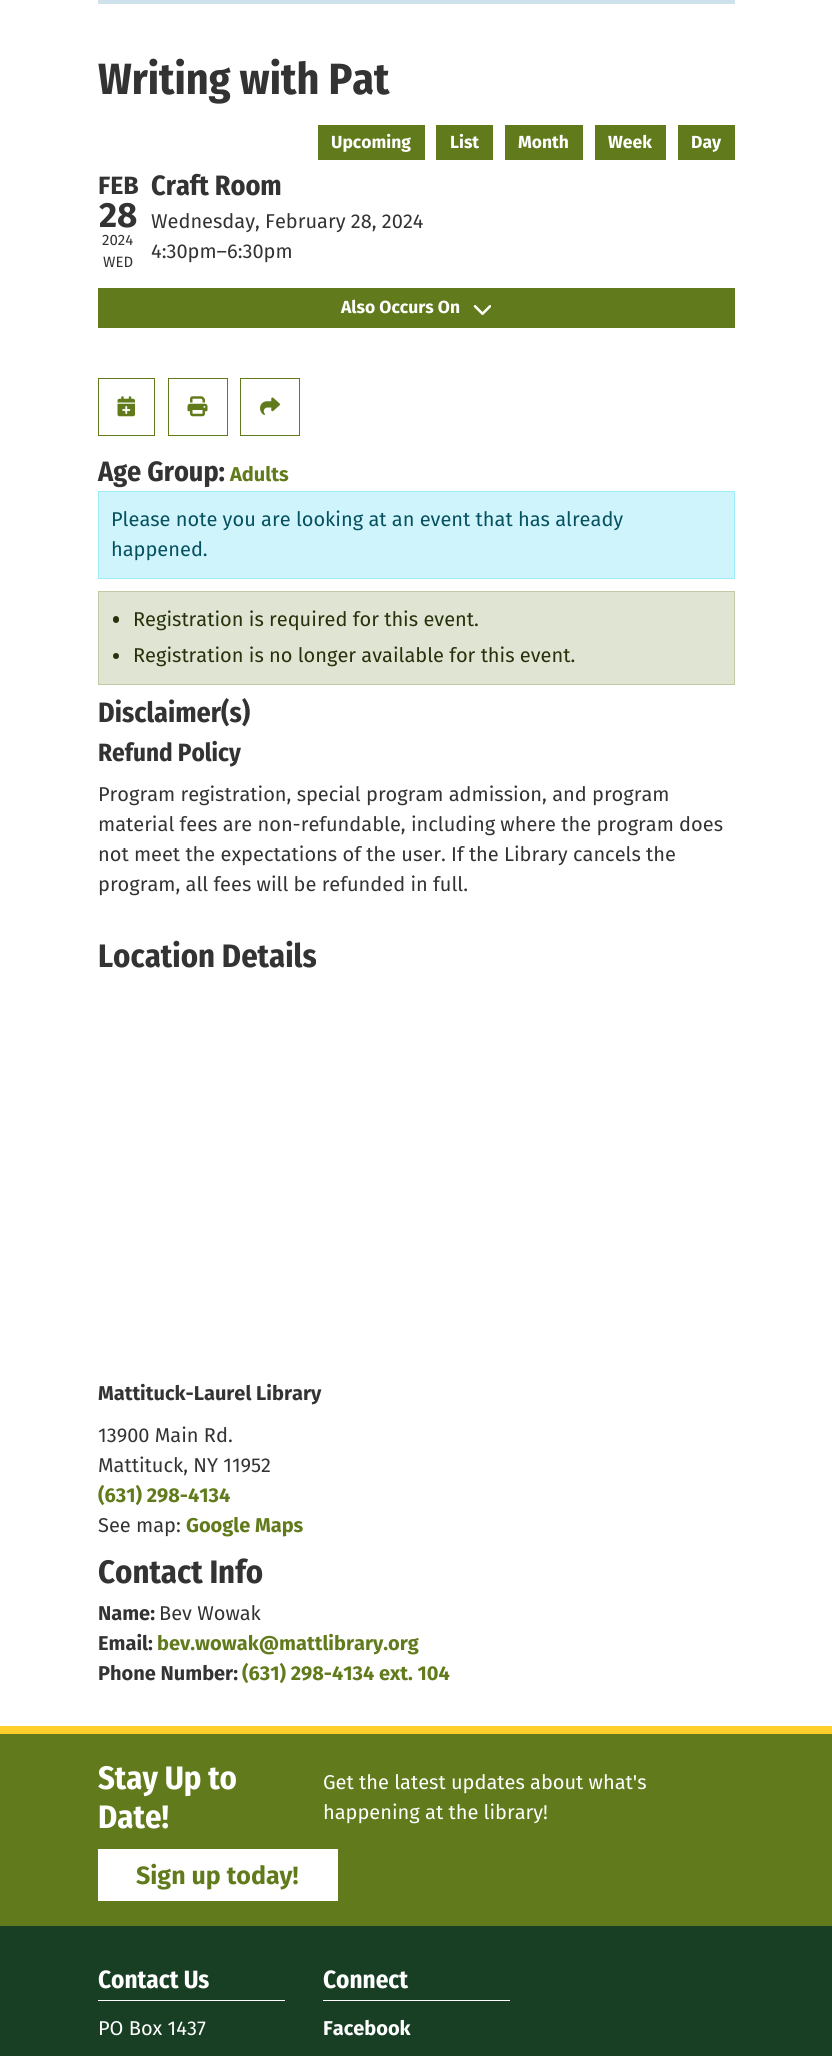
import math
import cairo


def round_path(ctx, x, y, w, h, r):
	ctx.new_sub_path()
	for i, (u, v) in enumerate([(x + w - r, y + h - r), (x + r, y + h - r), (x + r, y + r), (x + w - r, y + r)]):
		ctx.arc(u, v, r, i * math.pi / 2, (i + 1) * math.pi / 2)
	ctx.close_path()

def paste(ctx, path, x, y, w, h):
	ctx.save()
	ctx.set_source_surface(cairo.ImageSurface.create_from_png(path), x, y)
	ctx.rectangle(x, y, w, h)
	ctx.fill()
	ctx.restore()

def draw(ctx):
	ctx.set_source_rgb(1, 1, 1)
	ctx.paint()
	ctx.set_source_rgb(0.812, 0.886, 0.918)
	ctx.rectangle(98, 0, 637, 4)
	ctx.fill()
	ctx.select_font_face('Fira Sans Condensed', cairo.FONT_SLANT_NORMAL, cairo.FONT_WEIGHT_BOLD)
	ctx.set_font_size(43.75)
	ctx.set_source_rgb(0.2, 0.2, 0.2)
	ctx.move_to(98, 94)
	ctx.show_text('Writing with Pat')
	ctx.set_source_rgb(0.38, 0.482, 0.11)
	ctx.rectangle(318, 125, 107, 35)
	ctx.fill()
	ctx.select_font_face('Fira Sans', cairo.FONT_SLANT_NORMAL, cairo.FONT_WEIGHT_BOLD)
	ctx.set_font_size(17.5)
	ctx.set_source_rgb(1, 1, 1)
	ctx.move_to(331, 148)
	ctx.show_text('Upcoming')
	ctx.set_source_rgb(0.38, 0.482, 0.11)
	ctx.rectangle(436, 125, 57, 35)
	ctx.fill()
	ctx.set_source_rgb(1, 1, 1)
	ctx.move_to(450, 148)
	ctx.show_text('List')
	ctx.set_source_rgb(0.38, 0.482, 0.11)
	ctx.rectangle(505, 125, 78, 35)
	ctx.fill()
	ctx.set_source_rgb(1, 1, 1)
	ctx.move_to(518, 148)
	ctx.show_text('Month')
	ctx.set_source_rgb(0.38, 0.482, 0.11)
	ctx.rectangle(595, 125, 71, 35)
	ctx.fill()
	ctx.set_source_rgb(1, 1, 1)
	ctx.move_to(608, 148)
	ctx.show_text('Week')
	ctx.set_source_rgb(0.38, 0.482, 0.11)
	ctx.rectangle(678, 125, 57, 35)
	ctx.fill()
	ctx.set_source_rgb(1, 1, 1)
	ctx.move_to(691, 148)
	ctx.show_text('Day')
	ctx.set_font_size(25)
	ctx.set_source_rgb(0.2, 0.2, 0.2)
	ctx.move_to(98, 194)
	ctx.show_text('FEB')
	ctx.set_font_size(35)
	ctx.move_to(99, 227)
	ctx.show_text('28')
	ctx.select_font_face('Fira Sans')
	ctx.set_font_size(15)
	ctx.move_to(102, 245)
	ctx.show_text('2024')
	ctx.move_to(103, 267)
	ctx.show_text('WED')
	ctx.select_font_face('Fira Sans Condensed', cairo.FONT_SLANT_NORMAL, cairo.FONT_WEIGHT_BOLD)
	ctx.set_font_size(28)
	ctx.move_to(151, 195)
	ctx.show_text('Craft Room')
	ctx.select_font_face('Fira Sans')
	ctx.set_font_size(20)
	ctx.move_to(151, 228)
	ctx.show_text('Wednesday, February 28, 2024')
	ctx.move_to(151, 258)
	ctx.show_text('4:30pm–6:30pm')
	ctx.set_source_rgb(0.38, 0.482, 0.11)
	ctx.rectangle(98, 288, 637, 40)
	ctx.fill()
	ctx.select_font_face('Fira Sans', cairo.FONT_SLANT_NORMAL, cairo.FONT_WEIGHT_BOLD)
	ctx.set_font_size(17.5)
	ctx.set_source_rgb(1, 1, 1)
	ctx.move_to(341, 313)
	ctx.show_text('Also Occurs On')
	paste(ctx, 'media/1.png', 473, 305, 18, 10)
	ctx.rectangle(98.5, 378.5, 56, 57)
	ctx.set_source_rgb(0.38, 0.482, 0.11)
	ctx.set_line_width(1)
	ctx.stroke()
	paste(ctx, 'media/2.png', 117, 396, 18, 21)
	ctx.rectangle(168.5, 378.5, 59, 57)
	ctx.stroke()
	paste(ctx, 'media/3.png', 187, 396, 21, 21)
	ctx.rectangle(240.5, 378.5, 59, 57)
	ctx.stroke()
	paste(ctx, 'media/4.png', 260, 397, 20, 18)
	ctx.select_font_face('Fira Sans Condensed', cairo.FONT_SLANT_NORMAL, cairo.FONT_WEIGHT_BOLD)
	ctx.set_font_size(28)
	ctx.set_source_rgb(0.2, 0.2, 0.2)
	ctx.move_to(98, 481)
	ctx.show_text('Age Group:')
	ctx.select_font_face('Fira Sans', cairo.FONT_SLANT_NORMAL, cairo.FONT_WEIGHT_BOLD)
	ctx.set_font_size(20)
	ctx.set_source_rgb(0.38, 0.482, 0.11)
	ctx.move_to(230, 481)
	ctx.show_text('Adults')
	ctx.set_source_rgb(0.812, 0.957, 0.988)
	ctx.rectangle(98.5, 491.5, 636, 87)
	ctx.fill_preserve()
	ctx.set_source_rgb(0.62, 0.918, 0.976)
	ctx.stroke()
	ctx.select_font_face('Fira Sans')
	ctx.set_source_rgb(0.02, 0.318, 0.376)
	ctx.move_to(111, 526)
	ctx.show_text('Please note you are looking at an event that has already')
	ctx.move_to(111, 556)
	ctx.show_text('happened.')
	ctx.set_source_rgb(0.875, 0.898, 0.824)
	ctx.rectangle(98.5, 591.5, 636, 93)
	ctx.fill_preserve()
	ctx.set_source_rgb(0.753, 0.792, 0.643)
	ctx.stroke()
	ctx.set_source_rgb(0.153, 0.192, 0.043)
	round_path(ctx, 113, 616, 6, 7, 3)
	ctx.fill()
	ctx.move_to(133, 626)
	ctx.show_text('Registration is required for this event.')
	ctx.new_path()
	ctx.arc(116, 656, 3, 0, 2 * math.pi)
	ctx.fill()
	ctx.move_to(133, 662)
	ctx.show_text('Registration is no longer available for this event.')
	ctx.select_font_face('Fira Sans Condensed', cairo.FONT_SLANT_NORMAL, cairo.FONT_WEIGHT_BOLD)
	ctx.set_font_size(28)
	ctx.set_source_rgb(0.2, 0.2, 0.2)
	ctx.move_to(98, 722)
	ctx.show_text('Disclaimer(s)')
	ctx.set_font_size(25)
	ctx.move_to(98, 761)
	ctx.show_text('Refund Policy')
	ctx.select_font_face('Fira Sans')
	ctx.set_font_size(20)
	for x, y, s in [
		(98, 801, 'Program registration, special program admission, and program'),
		(98, 831, 'material fees are non-refundable, including where the program does'),
		(98, 861, 'not meet the expectations of the user. If the Library cancels the'),
		(98, 891, 'program, all fees will be refunded in full.'),
	]:
		ctx.move_to(x, y)
		ctx.show_text(s)
	ctx.select_font_face('Fira Sans Condensed', cairo.FONT_SLANT_NORMAL, cairo.FONT_WEIGHT_BOLD)
	ctx.set_font_size(32.5)
	ctx.move_to(98, 967)
	ctx.show_text('Location Details')
	ctx.select_font_face('Fira Sans', cairo.FONT_SLANT_NORMAL, cairo.FONT_WEIGHT_BOLD)
	ctx.set_font_size(20)
	ctx.move_to(98, 1400)
	ctx.show_text('Mattituck-Laurel Library')
	ctx.select_font_face('Fira Sans')
	ctx.move_to(98, 1442)
	ctx.show_text('13900 Main Rd.')
	ctx.move_to(98, 1472)
	ctx.show_text('Mattituck, NY 11952')
	ctx.select_font_face('Fira Sans', cairo.FONT_SLANT_NORMAL, cairo.FONT_WEIGHT_BOLD)
	ctx.set_source_rgb(0.38, 0.482, 0.11)
	ctx.move_to(98, 1502)
	ctx.show_text('(631) 298-4134')
	ctx.select_font_face('Fira Sans')
	ctx.set_source_rgb(0.2, 0.2, 0.2)
	ctx.move_to(98, 1532)
	ctx.show_text('See map:')
	ctx.select_font_face('Fira Sans', cairo.FONT_SLANT_NORMAL, cairo.FONT_WEIGHT_BOLD)
	ctx.set_source_rgb(0.38, 0.482, 0.11)
	ctx.move_to(186, 1532)
	ctx.show_text('Google Maps')
	ctx.select_font_face('Fira Sans Condensed', cairo.FONT_SLANT_NORMAL, cairo.FONT_WEIGHT_BOLD)
	ctx.set_font_size(32.5)
	ctx.set_source_rgb(0.2, 0.2, 0.2)
	ctx.move_to(98, 1583)
	ctx.show_text('Contact Info')
	ctx.select_font_face('Fira Sans', cairo.FONT_SLANT_NORMAL, cairo.FONT_WEIGHT_BOLD)
	ctx.set_font_size(20)
	ctx.move_to(98, 1620)
	ctx.show_text('Name:')
	ctx.select_font_face('Fira Sans')
	ctx.move_to(159, 1620)
	ctx.show_text('Bev Wowak')
	ctx.select_font_face('Fira Sans', cairo.FONT_SLANT_NORMAL, cairo.FONT_WEIGHT_BOLD)
	ctx.move_to(98, 1650)
	ctx.show_text('Email:')
	ctx.set_source_rgb(0.38, 0.482, 0.11)
	ctx.move_to(157, 1650)
	ctx.show_text('bev.wowak@mattlibrary.org')
	ctx.set_source_rgb(0.2, 0.2, 0.2)
	ctx.move_to(98, 1680)
	ctx.show_text('Phone Number:')
	ctx.set_source_rgb(0.38, 0.482, 0.11)
	ctx.move_to(242, 1680)
	ctx.show_text('(631) 298-4134 ext. 104')
	ctx.rectangle(0, 1734, 832, 192)
	ctx.fill()
	ctx.set_source_rgb(1, 0.812, 0.173)
	ctx.rectangle(0, 1726, 832, 8)
	ctx.fill()
	ctx.select_font_face('Fira Sans Condensed', cairo.FONT_SLANT_NORMAL, cairo.FONT_WEIGHT_BOLD)
	ctx.set_font_size(32.5)
	ctx.set_source_rgb(1, 1, 1)
	ctx.move_to(98, 1789)
	ctx.show_text('Stay Up to')
	ctx.move_to(98, 1828)
	ctx.show_text('Date!')
	ctx.select_font_face('Fira Sans')
	ctx.set_font_size(20)
	ctx.move_to(323, 1789)
	ctx.show_text('Get the latest updates about what\'s')
	ctx.move_to(323, 1819)
	ctx.show_text('happening at the library!')
	ctx.rectangle(98, 1849, 240, 52)
	ctx.fill()
	ctx.select_font_face('Fira Sans', cairo.FONT_SLANT_NORMAL, cairo.FONT_WEIGHT_BOLD)
	ctx.set_font_size(25)
	ctx.set_source_rgb(0.38, 0.482, 0.11)
	ctx.move_to(136, 1884)
	ctx.show_text('Sign up today!')
	ctx.set_source_rgb(0.094, 0.247, 0.137)
	ctx.rectangle(0, 1926, 832, 130)
	ctx.fill()
	ctx.set_source_rgb(1, 1, 1)
	ctx.rectangle(98, 2000, 187, 1)
	ctx.fill()
	ctx.select_font_face('Fira Sans Condensed', cairo.FONT_SLANT_NORMAL, cairo.FONT_WEIGHT_BOLD)
	ctx.move_to(98, 1988)
	ctx.show_text('Contact Us')
	ctx.select_font_face('Fira Sans')
	ctx.set_font_size(20)
	ctx.move_to(98, 2035)
	ctx.show_text('PO Box 1437')
	ctx.rectangle(323, 2000, 187, 1)
	ctx.fill()
	ctx.select_font_face('Fira Sans Condensed', cairo.FONT_SLANT_NORMAL, cairo.FONT_WEIGHT_BOLD)
	ctx.set_font_size(25)
	ctx.move_to(323, 1988)
	ctx.show_text('Connect')
	ctx.select_font_face('Fira Sans', cairo.FONT_SLANT_NORMAL, cairo.FONT_WEIGHT_BOLD)
	ctx.set_font_size(20)
	ctx.move_to(323, 2035)
	ctx.show_text('Facebook')


surface = cairo.ImageSurface(cairo.FORMAT_RGB24, 832, 2056)
ctx = cairo.Context(surface)
options = cairo.FontOptions()
options.set_hint_metrics(cairo.HINT_METRICS_OFF)
options.set_hint_style(cairo.HINT_STYLE_NONE)
ctx.set_font_options(options)
ctx.set_miter_limit(4)
draw(ctx)
surface.write_to_png('image.png')
